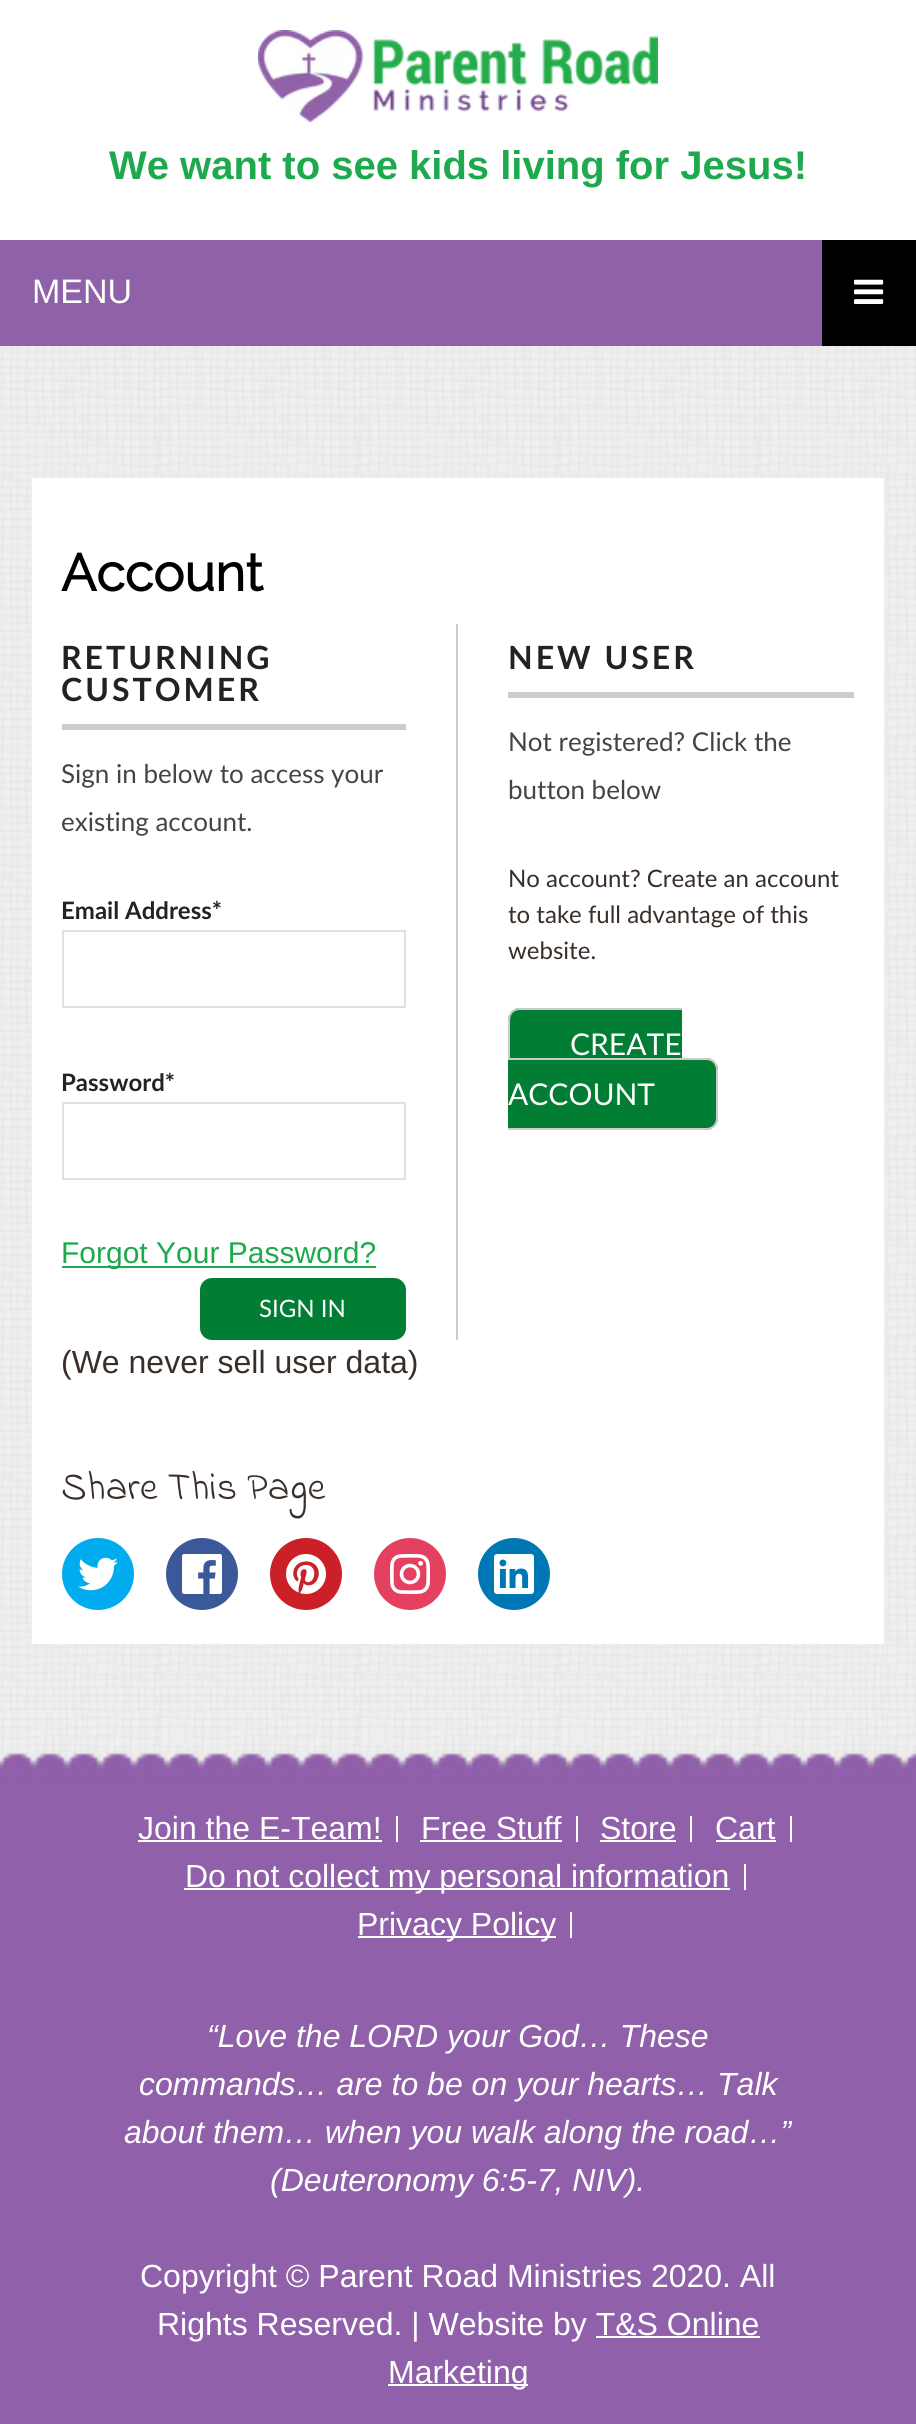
import math
import cairo


def write_spaced(ctx, x, y, s, letter, word):
	ctx.move_to(x, y)
	for ch in s:
		ctx.show_text(ch)
		ctx.rel_move_to(letter + word * (ch == ' '), 0)

def round_path(ctx, x, y, w, h, r):
	ctx.new_sub_path()
	for i, (u, v) in enumerate([(x + w - r, y + h - r), (x + r, y + h - r), (x + r, y + r), (x + w - r, y + r)]):
		ctx.arc(u, v, r, i * math.pi / 2, (i + 1) * math.pi / 2)
	ctx.close_path()

def paste(ctx, path, x, y, w, h):
	ctx.save()
	ctx.set_source_surface(cairo.ImageSurface.create_from_png(path), x, y)
	ctx.rectangle(x, y, w, h)
	ctx.fill()
	ctx.restore()

def draw(ctx):
	ctx.set_source_rgb(1, 1, 1)
	ctx.paint()
	paste(ctx, 'media/1.png', 0, 346, 916, 1410)
	paste(ctx, 'media/2.png', 258, 30, 400, 92)
	ctx.select_font_face('Liberation Sans', cairo.FONT_SLANT_NORMAL, cairo.FONT_WEIGHT_BOLD)
	ctx.set_font_size(40)
	ctx.set_source_rgb(0.118, 0.663, 0.31)
	ctx.move_to(109, 179)
	ctx.show_text('We want to see kids living for Jesus!')
	ctx.set_source_rgb(0.561, 0.38, 0.659)
	ctx.rectangle(0, 240, 822, 106)
	ctx.fill()
	ctx.select_font_face('Liberation Sans')
	ctx.set_font_size(34)
	ctx.set_source_rgb(1, 1, 1)
	ctx.move_to(32, 303)
	ctx.show_text('MENU')
	ctx.set_source_rgb(0, 0, 0)
	ctx.rectangle(822, 240, 94, 106)
	ctx.fill()
	paste(ctx, 'media/3.png', 854, 279, 30, 25)
	ctx.set_source_rgb(1, 1, 1)
	ctx.rectangle(32, 478, 852, 1166)
	ctx.fill()
	ctx.select_font_face('Raleway', cairo.FONT_SLANT_NORMAL, cairo.FONT_WEIGHT_BOLD)
	ctx.set_font_size(52)
	ctx.set_source_rgb(0, 0, 0)
	ctx.move_to(61, 591)
	ctx.show_text('Account')
	ctx.set_source_rgb(0.8, 0.8, 0.8)
	ctx.rectangle(456, 624, 2, 716)
	ctx.fill()
	ctx.rectangle(62, 724, 344, 6)
	ctx.fill()
	ctx.select_font_face('Lato', cairo.FONT_SLANT_NORMAL, cairo.FONT_WEIGHT_BOLD)
	ctx.set_font_size(32)
	ctx.set_source_rgb(0.133, 0.133, 0.133)
	write_spaced(ctx, 61, 669, 'RETURNING', 3, 0)
	write_spaced(ctx, 61, 701, 'CUSTOMER', 3, 0)
	ctx.select_font_face('Lato')
	ctx.set_font_size(26)
	ctx.set_source_rgb(0.267, 0.267, 0.267)
	ctx.move_to(61, 783)
	ctx.show_text('Sign in below to access your')
	ctx.move_to(61, 831)
	ctx.show_text('existing account.')
	ctx.select_font_face('Lato', cairo.FONT_SLANT_NORMAL, cairo.FONT_WEIGHT_BOLD)
	ctx.set_font_size(24)
	ctx.set_source_rgb(0.133, 0.133, 0.133)
	ctx.move_to(61, 919)
	ctx.show_text('Email Address*')
	ctx.rectangle(63, 931, 342, 76)
	ctx.set_source_rgb(0.882, 0.882, 0.882)
	ctx.stroke()
	ctx.set_source_rgb(0.133, 0.133, 0.133)
	ctx.move_to(61, 1091)
	ctx.show_text('Password*')
	ctx.rectangle(63, 1103, 342, 76)
	ctx.set_source_rgb(0.882, 0.882, 0.882)
	ctx.stroke()
	ctx.set_source_rgb(0.118, 0.663, 0.31)
	ctx.rectangle(62, 1266, 314, 2)
	ctx.fill()
	ctx.select_font_face('Liberation Sans')
	ctx.set_font_size(30)
	ctx.move_to(61, 1263)
	ctx.show_text('Forgot Your Password?')
	ctx.set_source_rgb(0.004, 0.494, 0.2)
	round_path(ctx, 200, 1278, 206, 62, 12)
	ctx.fill()
	ctx.select_font_face('Lato')
	ctx.set_font_size(24)
	ctx.set_source_rgb(1, 1, 1)
	ctx.move_to(259, 1317)
	ctx.show_text('SIGN IN')
	ctx.set_source_rgb(0.8, 0.8, 0.8)
	ctx.rectangle(508, 692, 346, 6)
	ctx.fill()
	ctx.select_font_face('Lato', cairo.FONT_SLANT_NORMAL, cairo.FONT_WEIGHT_BOLD)
	ctx.set_font_size(32)
	ctx.set_source_rgb(0.133, 0.133, 0.133)
	write_spaced(ctx, 508, 669, 'NEW USER', 3, 0)
	ctx.select_font_face('Lato')
	ctx.set_font_size(26)
	ctx.set_source_rgb(0.267, 0.267, 0.267)
	ctx.move_to(508, 751)
	ctx.show_text('Not registered? Click the')
	ctx.move_to(508, 799)
	ctx.show_text('button below')
	ctx.set_font_size(24)
	ctx.set_source_rgb(0.224, 0.18, 0.165)
	for x, y, s in [
		(508, 887, 'No account? Create an account'),
		(508, 923, 'to take full advantage of this'),
		(508, 959, 'website.'),
	]:
		ctx.move_to(x, y)
		ctx.show_text(s)
	ctx.set_source_rgb(0.004, 0.494, 0.2)
	ctx.new_path()
	ctx.move_to(520, 1008)
	ctx.line_to(682, 1008)
	ctx.line_to(682, 1080)
	ctx.line_to(520, 1080)
	ctx.curve_to(513.5, 1080, 508, 1074.5, 508, 1068)
	ctx.line_to(508, 1020)
	ctx.curve_to(508, 1013.5, 513.5, 1008, 520, 1008)
	ctx.close_path()
	ctx.fill()
	ctx.set_source_rgb(0.8, 0.8, 0.8)
	ctx.set_fill_rule(cairo.FILL_RULE_EVEN_ODD)
	ctx.new_path()
	ctx.move_to(520, 1008)
	ctx.line_to(682, 1008)
	ctx.line_to(682, 1080)
	ctx.line_to(520, 1080)
	ctx.curve_to(513, 1080, 508, 1075, 508, 1068)
	ctx.line_to(508, 1020)
	ctx.curve_to(508, 1013, 513, 1008, 520, 1008)
	ctx.close_path()
	ctx.move_to(520, 1010)
	ctx.line_to(682, 1010)
	ctx.line_to(682, 1078)
	ctx.line_to(520, 1078)
	ctx.curve_to(514, 1078, 510, 1074, 510, 1068)
	ctx.line_to(510, 1020)
	ctx.curve_to(510, 1014, 514, 1010, 520, 1010)
	ctx.close_path()
	ctx.fill()
	ctx.set_font_size(30)
	ctx.set_source_rgb(1, 1, 1)
	ctx.move_to(570, 1055)
	ctx.show_text('CREATE')
	ctx.set_source_rgb(0.004, 0.494, 0.2)
	ctx.new_path()
	ctx.move_to(508, 1058)
	ctx.line_to(706, 1058)
	ctx.curve_to(712.5, 1058, 718, 1063.5, 718, 1070)
	ctx.line_to(718, 1118)
	ctx.curve_to(718, 1124.5, 712.5, 1130, 706, 1130)
	ctx.line_to(508, 1130)
	ctx.close_path()
	ctx.fill()
	ctx.set_source_rgb(0.8, 0.8, 0.8)
	ctx.new_path()
	ctx.move_to(508, 1058)
	ctx.line_to(706, 1058)
	ctx.curve_to(713, 1058, 718, 1063, 718, 1070)
	ctx.line_to(718, 1118)
	ctx.curve_to(718, 1125, 713, 1130, 706, 1130)
	ctx.line_to(508, 1130)
	ctx.close_path()
	ctx.move_to(508, 1060)
	ctx.line_to(706, 1060)
	ctx.curve_to(712, 1060, 716, 1064, 716, 1070)
	ctx.line_to(716, 1118)
	ctx.curve_to(716, 1124, 712, 1128, 706, 1128)
	ctx.line_to(508, 1128)
	ctx.close_path()
	ctx.fill()
	ctx.set_source_rgb(1, 1, 1)
	ctx.move_to(508, 1105)
	ctx.show_text('ACCOUNT')
	ctx.select_font_face('Liberation Sans')
	ctx.set_font_size(32)
	ctx.set_source_rgb(0.224, 0.18, 0.165)
	ctx.move_to(61, 1373)
	ctx.show_text('(We never sell user data)')
	ctx.select_font_face('Indie Flower')
	ctx.set_font_size(40)
	ctx.move_to(61, 1499)
	ctx.show_text('Share This Page')
	ctx.set_source_rgb(0, 0.675, 0.929)
	ctx.new_path()
	ctx.arc(98, 1574, 36, 0, 2 * math.pi)
	ctx.fill()
	paste(ctx, 'media/4.png', 78, 1557, 40, 34)
	ctx.set_source_rgb(0.231, 0.349, 0.596)
	ctx.arc(202, 1574, 36, 0, 2 * math.pi)
	ctx.fill()
	paste(ctx, 'media/5.png', 182, 1554, 40, 40)
	ctx.set_source_rgb(0.796, 0.125, 0.153)
	ctx.arc(306, 1574, 36, 0, 2 * math.pi)
	ctx.fill()
	paste(ctx, 'media/6.png', 286, 1554, 40, 40)
	ctx.set_source_rgb(0.894, 0.251, 0.373)
	ctx.arc(410, 1574, 36, 0, 2 * math.pi)
	ctx.fill()
	paste(ctx, 'media/7.png', 390, 1554, 40, 40)
	ctx.set_source_rgb(0, 0.467, 0.71)
	ctx.arc(514, 1574, 36, 0, 2 * math.pi)
	ctx.fill()
	paste(ctx, 'media/8.png', 494, 1554, 40, 40)
	paste(ctx, 'media/9.png', 0, 1753, 916, 671)
	ctx.set_source_rgb(1, 1, 1)
	ctx.rectangle(396, 1816, 2, 26)
	ctx.fill()
	ctx.select_font_face('Liberation Sans')
	ctx.set_font_size(32)
	ctx.move_to(138, 1839)
	ctx.show_text('Join the E-Team!')
	ctx.rectangle(138, 1840, 244, 2)
	ctx.fill()
	ctx.rectangle(576, 1816, 2, 26)
	ctx.fill()
	ctx.move_to(421, 1839)
	ctx.show_text('Free Stuff')
	ctx.rectangle(420, 1840, 142, 2)
	ctx.fill()
	ctx.rectangle(690, 1816, 2, 26)
	ctx.fill()
	ctx.move_to(600, 1839)
	ctx.show_text('Store')
	ctx.rectangle(600, 1840, 76, 2)
	ctx.fill()
	ctx.rectangle(790, 1816, 2, 26)
	ctx.fill()
	ctx.move_to(715, 1839)
	ctx.show_text('Cart')
	ctx.rectangle(716, 1840, 60, 2)
	ctx.rectangle(744, 1864, 2, 26)
	ctx.rectangle(184, 1888, 546, 2)
	ctx.fill()
	ctx.move_to(185, 1887)
	ctx.show_text('Do not collect my personal information')
	ctx.rectangle(570, 1912, 2, 26)
	ctx.fill()
	ctx.rectangle(358, 1936, 198, 2)
	ctx.fill()
	ctx.move_to(357, 1935)
	ctx.show_text('Privacy Policy')
	ctx.select_font_face('Liberation Sans', cairo.FONT_SLANT_ITALIC)
	for x, y, s in [
		(207, 2047, '“Love the LORD your God… These'),
		(139, 2095, 'commands… are to be on your hearts… Talk'),
		(124, 2143, 'about them… when you walk along the road…”'),
		(270, 2191, '(Deuteronomy 6:5-7, NIV).'),
	]:
		ctx.move_to(x, y)
		ctx.show_text(s)
	ctx.select_font_face('Liberation Sans')
	ctx.move_to(140, 2287)
	ctx.show_text('Copyright © Parent Road Ministries 2020. All')
	ctx.move_to(157, 2335)
	ctx.show_text('Rights Reserved. | Website by T&S Online')
	ctx.rectangle(388, 2384, 140, 2)
	ctx.fill()
	ctx.move_to(388, 2383)
	ctx.show_text('Marketing')
	ctx.rectangle(596, 2336, 164, 2)
	ctx.fill()


surface = cairo.ImageSurface(cairo.FORMAT_RGB24, 916, 2424)
ctx = cairo.Context(surface)
options = cairo.FontOptions()
options.set_hint_metrics(cairo.HINT_METRICS_OFF)
options.set_hint_style(cairo.HINT_STYLE_NONE)
ctx.set_font_options(options)
ctx.set_miter_limit(4)
draw(ctx)
surface.write_to_png('image.png')
